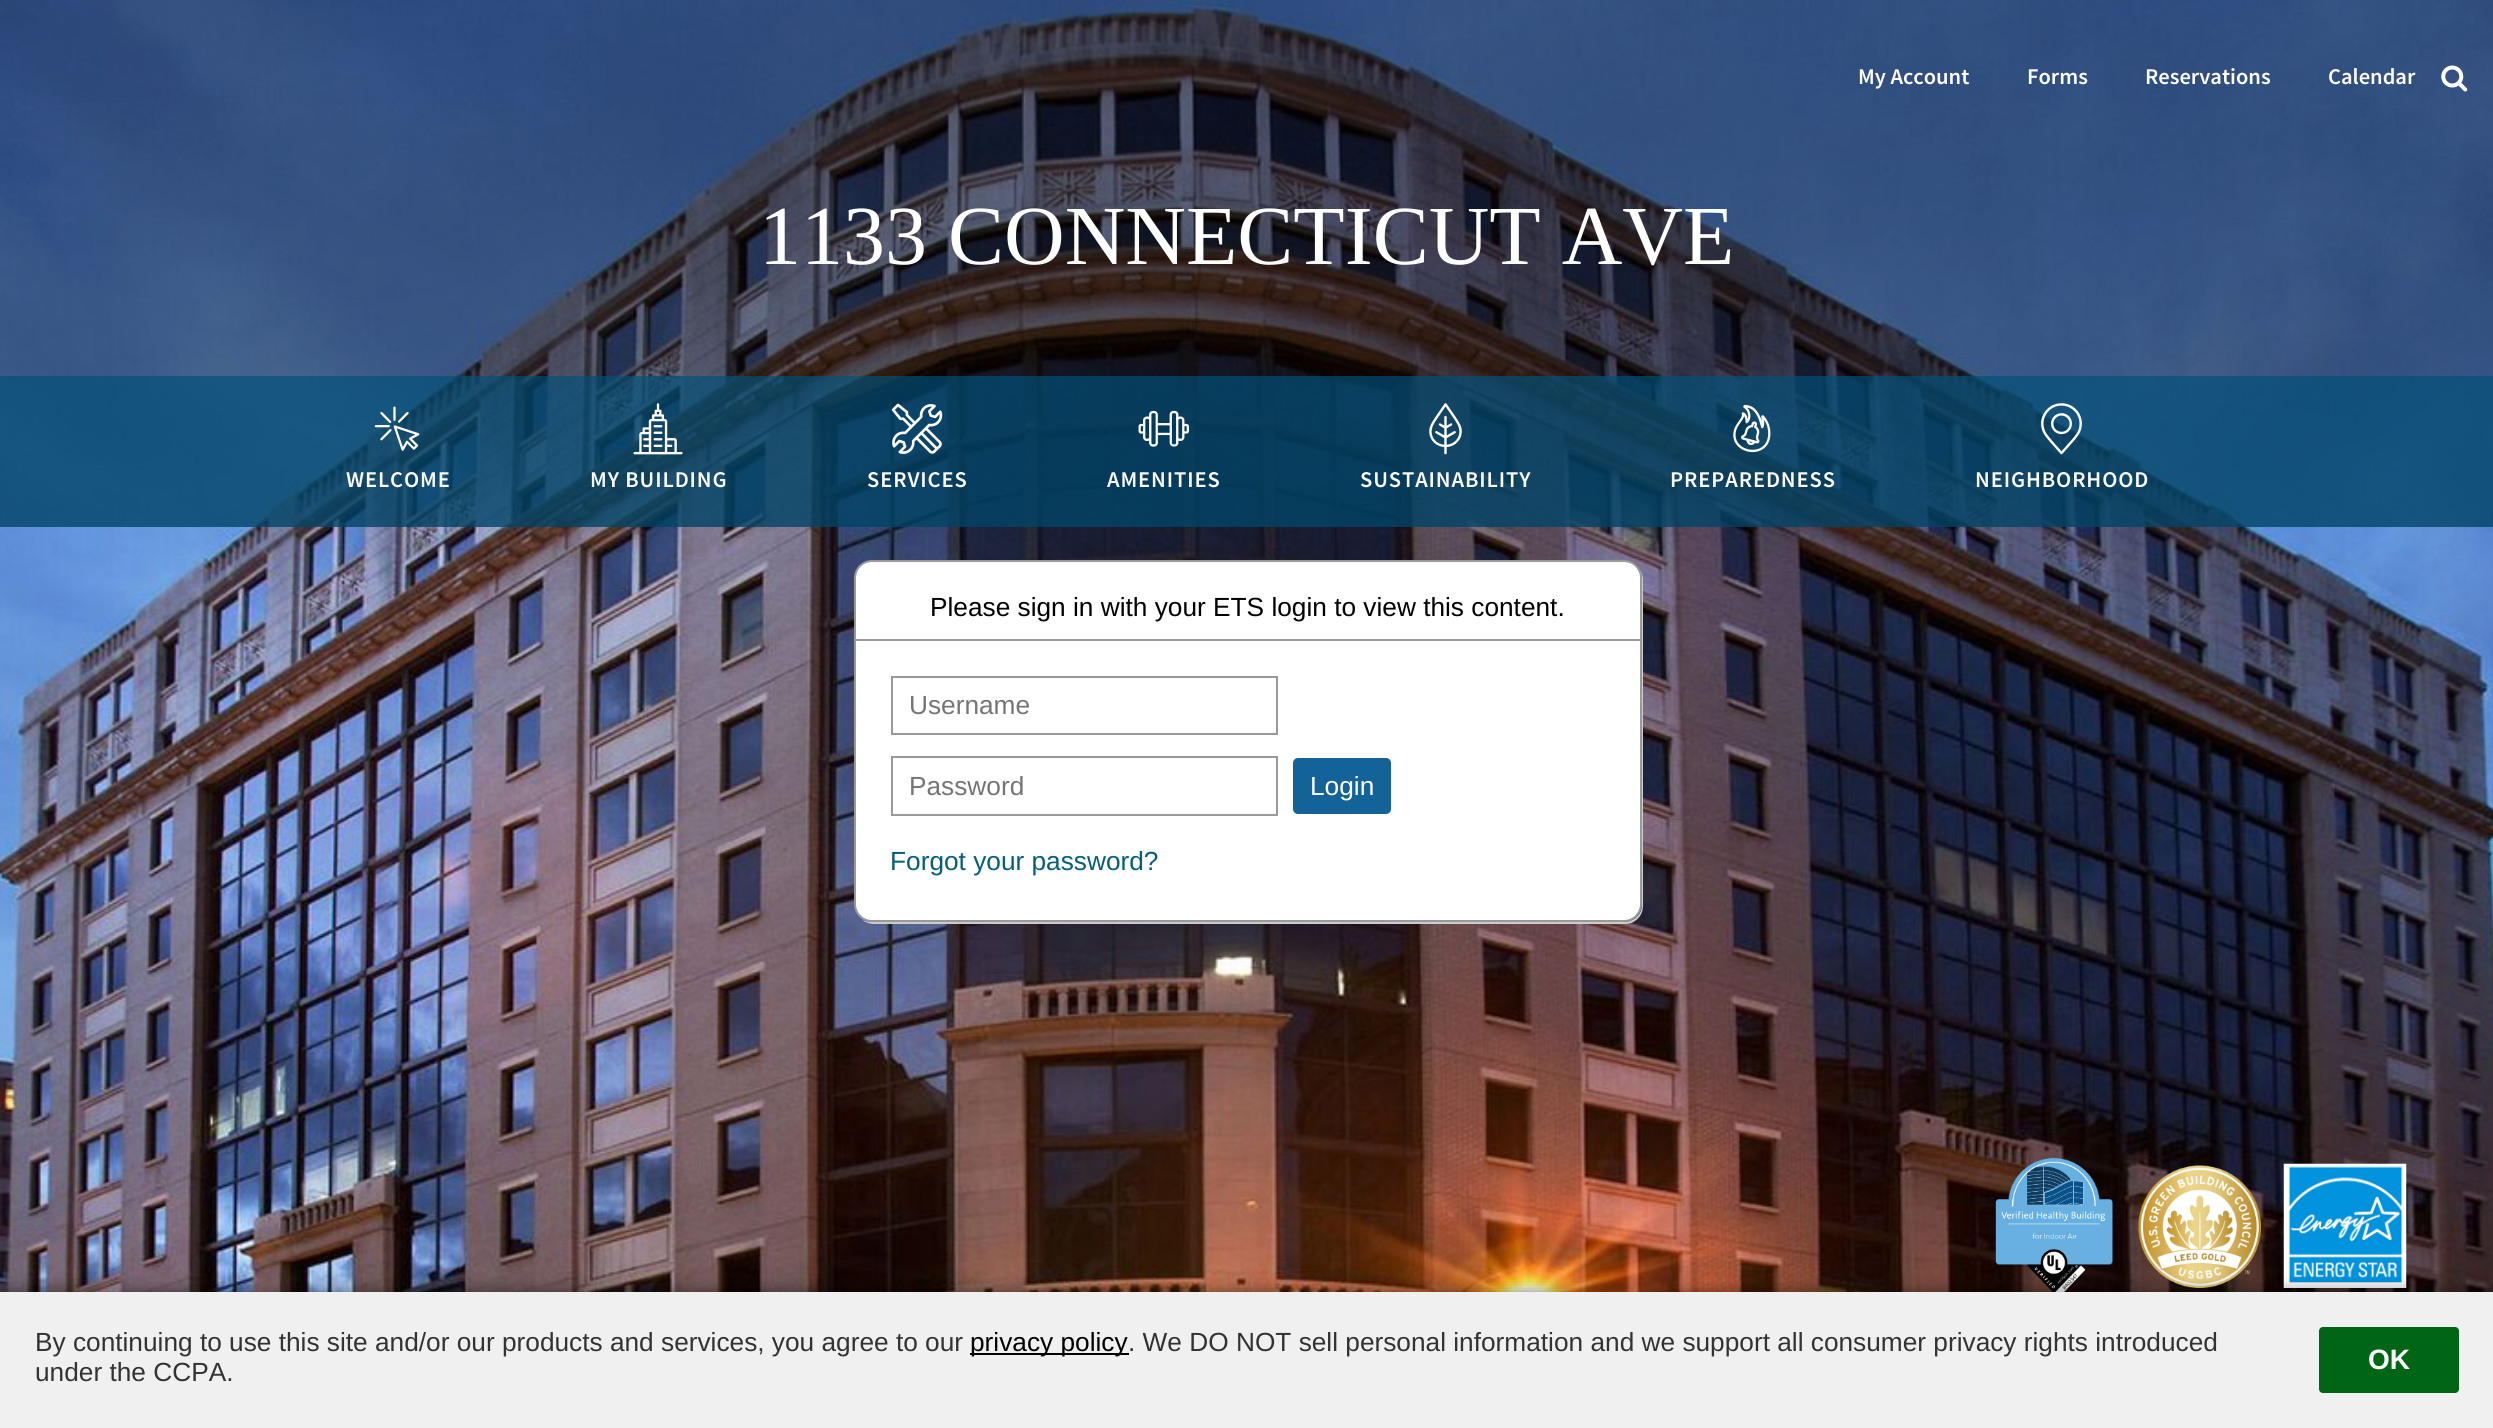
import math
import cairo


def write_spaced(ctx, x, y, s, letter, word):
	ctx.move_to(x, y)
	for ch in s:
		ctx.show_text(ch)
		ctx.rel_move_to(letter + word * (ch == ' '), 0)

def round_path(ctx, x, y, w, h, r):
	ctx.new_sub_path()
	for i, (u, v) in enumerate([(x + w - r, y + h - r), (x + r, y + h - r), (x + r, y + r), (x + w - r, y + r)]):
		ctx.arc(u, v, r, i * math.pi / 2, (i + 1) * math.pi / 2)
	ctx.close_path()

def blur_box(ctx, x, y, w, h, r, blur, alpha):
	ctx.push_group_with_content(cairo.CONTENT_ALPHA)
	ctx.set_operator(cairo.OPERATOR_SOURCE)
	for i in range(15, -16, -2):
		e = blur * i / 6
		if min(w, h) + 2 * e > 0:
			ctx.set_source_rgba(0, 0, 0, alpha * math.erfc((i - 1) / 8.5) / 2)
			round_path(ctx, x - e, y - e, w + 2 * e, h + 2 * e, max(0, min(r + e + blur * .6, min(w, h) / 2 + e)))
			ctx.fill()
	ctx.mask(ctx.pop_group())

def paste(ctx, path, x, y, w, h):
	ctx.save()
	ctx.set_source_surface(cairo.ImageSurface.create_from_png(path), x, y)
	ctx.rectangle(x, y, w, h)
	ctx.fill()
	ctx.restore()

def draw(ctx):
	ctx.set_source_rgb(1, 1, 1)
	ctx.paint()
	paste(ctx, 'media/1.png', 0, 0, 2493, 1292)
	ctx.set_source_rgba(0, 0, 0, 0.38)
	ctx.rectangle(0, 0, 2493, 376)
	ctx.fill()
	ctx.select_font_face('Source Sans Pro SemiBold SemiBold')
	ctx.set_font_size(22.5)
	ctx.set_source_rgb(1, 1, 1)
	for x, y, s in [
		(1858, 84, 'My Account'),
		(2027, 84, 'Forms'),
		(2145, 84, 'Reservations'),
		(2328, 84, 'Calendar'),
	]:
		ctx.move_to(x, y)
		ctx.show_text(s)
	paste(ctx, 'media/2.png', 2441, 65, 27, 27)
	ctx.select_font_face('Liberation Serif')
	ctx.set_font_size(84)
	ctx.move_to(759, 264)
	ctx.show_text('1133 CONNECTICUT AVE')
	ctx.set_source_rgba(0.008, 0.267, 0.404, 0.8)
	ctx.rectangle(0, 376, 2493, 151)
	ctx.fill()
	paste(ctx, 'media/3.png', 374, 406, 46, 45)
	ctx.select_font_face('Source Sans Pro SemiBold SemiBold')
	ctx.set_font_size(22.5)
	ctx.set_source_rgb(1, 1, 1)
	write_spaced(ctx, 346, 487, 'WELCOME', 0.9, 0)
	paste(ctx, 'media/4.png', 633, 403, 50, 52)
	write_spaced(ctx, 590, 487, 'MY BUILDING', 0.9, 0)
	paste(ctx, 'media/5.png', 891, 403, 52, 51)
	write_spaced(ctx, 867, 487, 'SERVICES', 0.9, 0)
	paste(ctx, 'media/6.png', 1138, 410, 51, 37)
	write_spaced(ctx, 1107, 487, 'AMENITIES', 0.9, 0)
	paste(ctx, 'media/7.png', 1429, 403, 33, 52)
	write_spaced(ctx, 1360, 487, 'SUSTAINABILITY', 0.9, 0)
	paste(ctx, 'media/8.png', 1733, 405, 38, 48)
	write_spaced(ctx, 1670, 487, 'PREPAREDNESS', 0.9, 0)
	paste(ctx, 'media/9.png', 2041, 403, 41, 52)
	write_spaced(ctx, 1975, 487, 'NEIGHBORHOOD', 0.9, 0)
	ctx.set_source_rgb(0.8, 0.8, 0.8)
	ctx.new_path()
	ctx.move_to(862, 920)
	ctx.curve_to(865, 922, 869, 924, 874, 924)
	ctx.line_to(1625, 924)
	ctx.curve_to(1635, 924, 1643, 916, 1643, 906)
	ctx.line_to(1643, 580)
	ctx.curve_to(1643, 576, 1642, 572, 1639, 569)
	ctx.curve_to(1641, 572, 1642, 575, 1642, 578)
	ctx.line_to(1642, 905)
	ctx.curve_to(1642, 914, 1634, 922, 1624, 922)
	ctx.line_to(872, 922)
	ctx.curve_to(868, 922, 865, 921, 862, 920)
	ctx.close_path()
	ctx.fill()
	ctx.set_source_rgb(1, 1, 1)
	round_path(ctx, 855, 561, 786, 360, 17)
	ctx.fill_preserve()
	ctx.set_source_rgb(0.6, 0.6, 0.6)
	ctx.stroke()
	ctx.rectangle(854, 639, 788, 2)
	ctx.fill()
	ctx.select_font_face('Liberation Sans')
	ctx.set_font_size(26.25)
	ctx.set_source_rgb(0, 0, 0)
	ctx.move_to(930, 616)
	ctx.show_text('Please sign in with your ETS login to view this content.')
	ctx.rectangle(892, 677, 385, 57)
	ctx.set_source_rgb(0.6, 0.6, 0.6)
	ctx.stroke()
	ctx.set_source_rgb(0.459, 0.459, 0.459)
	ctx.move_to(909, 714)
	ctx.show_text('Username')
	ctx.rectangle(892, 757, 385, 58)
	ctx.set_source_rgb(0.6, 0.6, 0.6)
	ctx.stroke()
	ctx.set_source_rgb(0.459, 0.459, 0.459)
	ctx.move_to(909, 795)
	ctx.show_text('Password')
	ctx.set_source_rgb(0.075, 0.384, 0.596)
	round_path(ctx, 1293, 758, 98, 56, 5)
	ctx.fill()
	ctx.set_source_rgb(1, 1, 1)
	ctx.move_to(1310, 795)
	ctx.show_text('Login')
	ctx.set_source_rgb(0.012, 0.376, 0.482)
	ctx.move_to(890, 870)
	ctx.show_text('Forgot your password?')
	paste(ctx, 'media/10.png', 1995, 1157, 118, 135)
	paste(ctx, 'media/11.png', 2138, 1165, 123, 123)
	paste(ctx, 'media/12.png', 2283, 1163, 124, 125)
	ctx.set_source_rgb(0, 0, 0)
	blur_box(ctx, 0, 1292, 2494, 136, 0, 9, 0.5)
	ctx.set_source_rgb(0.941, 0.941, 0.941)
	ctx.rectangle(0, 1292, 2493, 136)
	ctx.fill()
	ctx.set_source_rgb(0.2, 0.2, 0.2)
	ctx.move_to(35, 1351)
	ctx.show_text('By continuing to use this site and/or our products and services, you agree to our')
	ctx.set_source_rgb(0, 0, 0)
	ctx.rectangle(970, 1353, 159, 2)
	ctx.fill()
	ctx.move_to(970, 1351)
	ctx.show_text('privacy policy')
	ctx.set_source_rgb(0.2, 0.2, 0.2)
	ctx.move_to(1128, 1351)
	ctx.show_text('. We DO NOT sell personal information and we support all consumer privacy rights introduced')
	ctx.move_to(35, 1381)
	ctx.show_text('under the CCPA.')
	ctx.set_source_rgb(0, 0.4, 0.086)
	round_path(ctx, 2319, 1327, 140, 66, 4)
	ctx.fill()
	ctx.select_font_face('Liberation Sans', cairo.FONT_SLANT_NORMAL, cairo.FONT_WEIGHT_BOLD)
	ctx.set_font_size(28)
	ctx.set_source_rgb(1, 1, 1)
	ctx.move_to(2368, 1369)
	ctx.show_text('OK')


surface = cairo.ImageSurface(cairo.FORMAT_RGB24, 2493, 1428)
ctx = cairo.Context(surface)
options = cairo.FontOptions()
options.set_hint_metrics(cairo.HINT_METRICS_OFF)
options.set_hint_style(cairo.HINT_STYLE_NONE)
ctx.set_font_options(options)
ctx.set_miter_limit(4)
draw(ctx)
surface.write_to_png('image.png')
